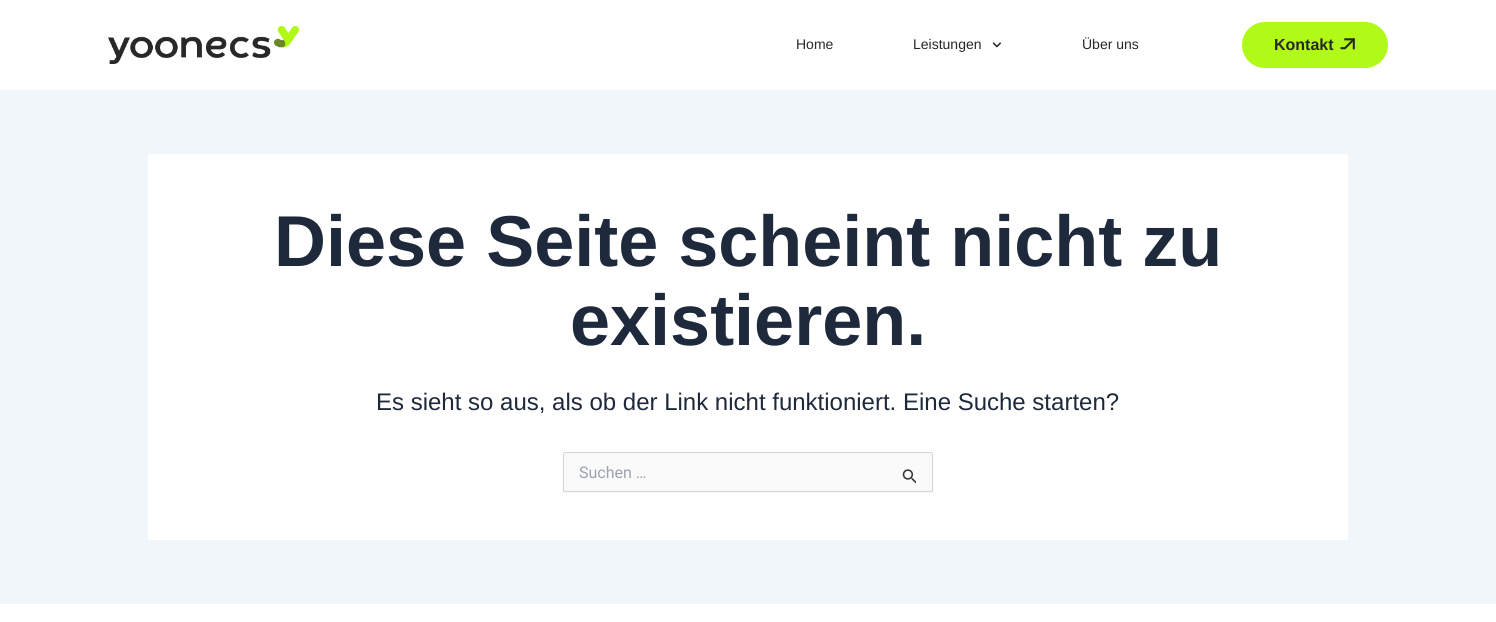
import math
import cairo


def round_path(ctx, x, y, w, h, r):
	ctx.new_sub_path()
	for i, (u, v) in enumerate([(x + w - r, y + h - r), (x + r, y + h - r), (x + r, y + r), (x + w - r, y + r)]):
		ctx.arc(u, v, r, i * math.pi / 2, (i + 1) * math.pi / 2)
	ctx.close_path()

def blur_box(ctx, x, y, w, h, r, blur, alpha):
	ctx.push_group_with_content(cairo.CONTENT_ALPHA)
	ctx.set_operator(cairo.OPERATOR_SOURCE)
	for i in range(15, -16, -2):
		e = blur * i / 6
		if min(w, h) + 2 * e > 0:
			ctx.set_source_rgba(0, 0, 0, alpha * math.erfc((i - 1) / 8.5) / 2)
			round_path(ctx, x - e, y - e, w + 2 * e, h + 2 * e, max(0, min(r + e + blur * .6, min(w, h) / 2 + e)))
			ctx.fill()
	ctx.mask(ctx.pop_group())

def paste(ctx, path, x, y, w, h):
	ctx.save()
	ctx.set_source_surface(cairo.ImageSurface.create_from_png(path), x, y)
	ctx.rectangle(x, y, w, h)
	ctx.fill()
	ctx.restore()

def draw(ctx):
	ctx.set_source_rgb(0.941, 0.961, 0.98)
	ctx.paint()
	ctx.set_source_rgb(1, 1, 1)
	ctx.rectangle(0, 0, 1496, 90)
	ctx.fill()
	paste(ctx, 'media/1.png', 108, 26, 191, 38)
	ctx.select_font_face('Liberation Sans')
	ctx.set_font_size(14)
	ctx.set_source_rgb(0.157, 0.157, 0.157)
	ctx.move_to(796, 49)
	ctx.show_text('Home')
	ctx.move_to(913, 49)
	ctx.show_text('Leistungen')
	paste(ctx, 'media/2.png', 992, 42, 9, 6)
	ctx.move_to(1082, 49)
	ctx.show_text('Über uns')
	ctx.set_source_rgb(0.694, 0.973, 0.086)
	round_path(ctx, 1242, 22, 146, 46, 23)
	ctx.fill()
	ctx.select_font_face('Liberation Sans', cairo.FONT_SLANT_NORMAL, cairo.FONT_WEIGHT_BOLD)
	ctx.set_font_size(16)
	ctx.set_source_rgb(0.157, 0.157, 0.157)
	ctx.move_to(1274, 50)
	ctx.show_text('Kontakt')
	paste(ctx, 'media/3.png', 1340, 38, 15, 12)
	ctx.set_source_rgb(1, 1, 1)
	ctx.rectangle(148, 154, 1200, 386)
	ctx.fill()
	ctx.set_font_size(72)
	ctx.set_source_rgb(0.118, 0.161, 0.231)
	ctx.move_to(274, 266)
	ctx.show_text('Diese Seite scheint nicht zu')
	ctx.move_to(570, 345)
	ctx.show_text('existieren.')
	ctx.select_font_face('Liberation Sans')
	ctx.set_font_size(24)
	ctx.move_to(376, 410)
	ctx.show_text('Es sieht so aus, als ob der Link nicht funktioniert. Eine Suche starten?')
	ctx.set_source_rgb(0, 0, 0)
	blur_box(ctx, 563, 453, 370, 40, 2, 1, 0.05)
	ctx.set_source_rgb(0.98, 0.98, 0.98)
	round_path(ctx, 563.5, 452.5, 369, 39, 1.5)
	ctx.fill_preserve()
	ctx.set_source_rgb(0.82, 0.835, 0.859)
	ctx.set_line_width(1)
	ctx.stroke()
	ctx.select_font_face('Roboto')
	ctx.set_font_size(16)
	ctx.set_source_rgb(0.612, 0.639, 0.686)
	ctx.move_to(579, 478)
	ctx.show_text('Suchen …')
	paste(ctx, 'media/4.png', 902, 469, 14, 15)
	ctx.set_source_rgb(1, 1, 1)
	ctx.rectangle(0, 604, 1496, 18)
	ctx.fill()


surface = cairo.ImageSurface(cairo.FORMAT_RGB24, 1496, 622)
ctx = cairo.Context(surface)
options = cairo.FontOptions()
options.set_hint_metrics(cairo.HINT_METRICS_OFF)
options.set_hint_style(cairo.HINT_STYLE_NONE)
ctx.set_font_options(options)
ctx.set_miter_limit(4)
draw(ctx)
surface.write_to_png('image.png')
